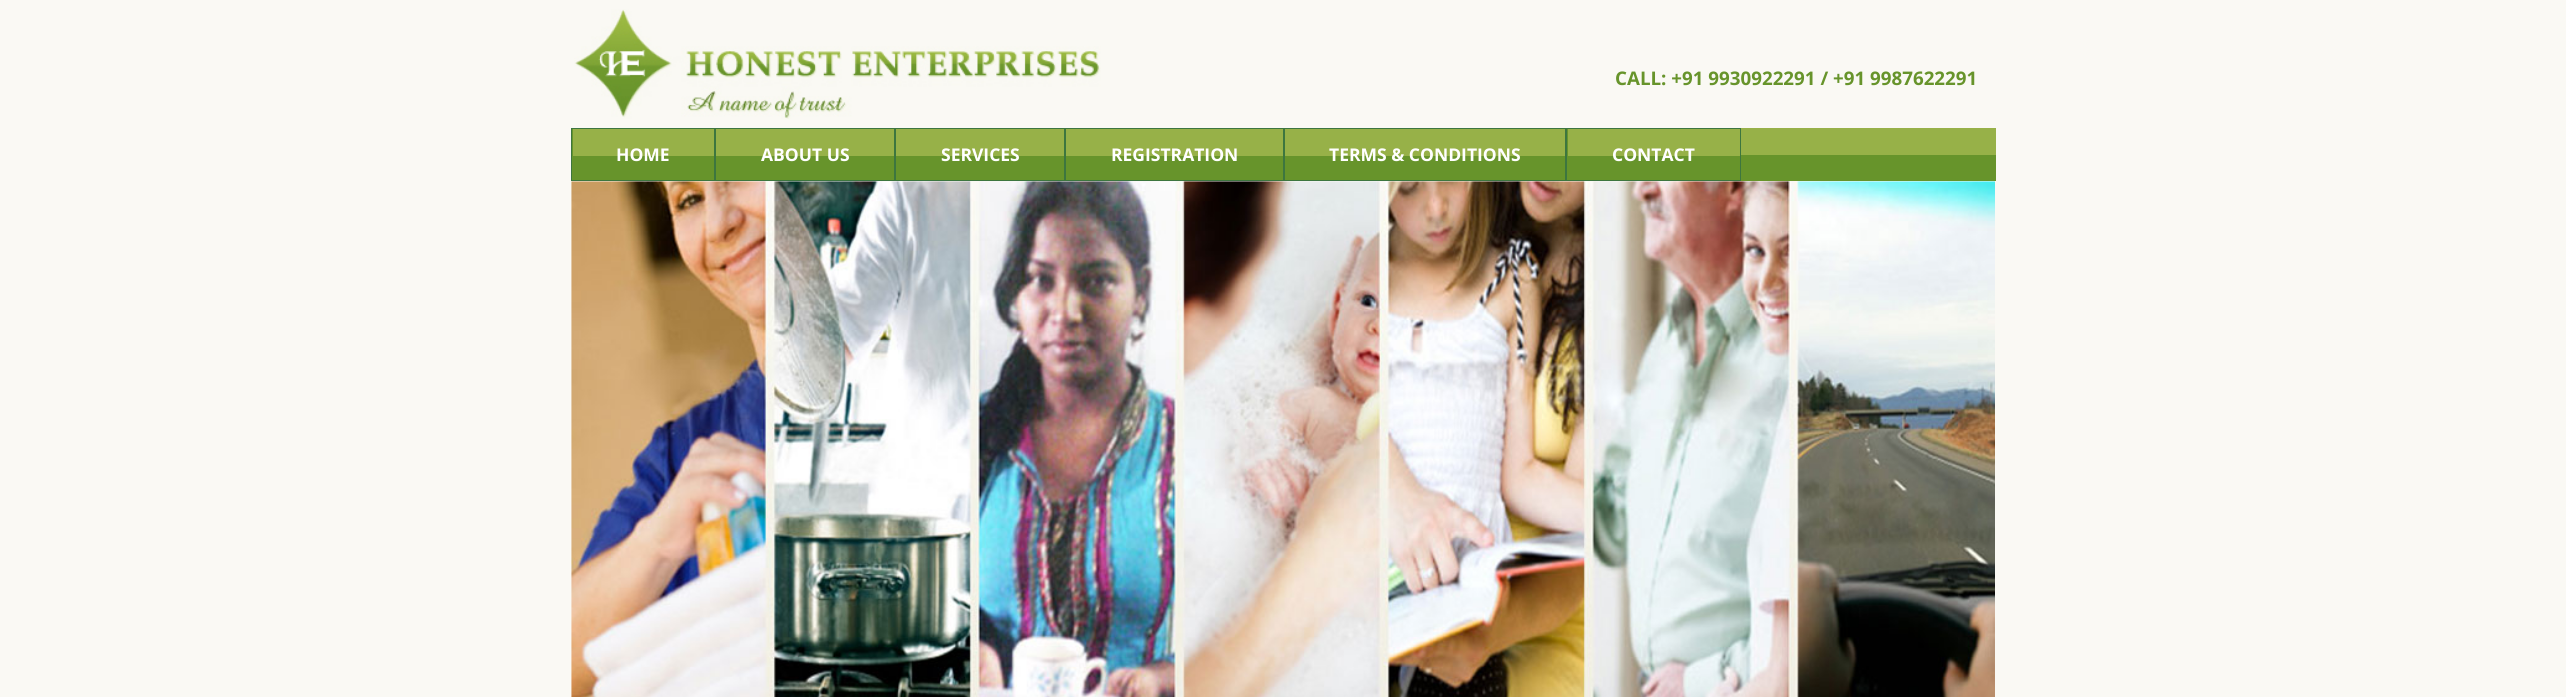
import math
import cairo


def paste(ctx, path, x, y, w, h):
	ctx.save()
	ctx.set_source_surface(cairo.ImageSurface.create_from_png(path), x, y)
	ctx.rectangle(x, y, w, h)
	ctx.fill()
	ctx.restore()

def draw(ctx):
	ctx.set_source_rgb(0.98, 0.976, 0.957)
	ctx.paint()
	paste(ctx, 'media/1.png', 574, 9, 527, 110)
	ctx.select_font_face('Open Sans', cairo.FONT_SLANT_NORMAL, cairo.FONT_WEIGHT_BOLD)
	ctx.set_font_size(18.75)
	ctx.set_source_rgb(0.404, 0.58, 0.169)
	ctx.move_to(1615, 85)
	ctx.show_text('CALL: +91 9930922291 / +91 9987622291')
	ctx.rectangle(1741, 155, 255, 26)
	ctx.fill()
	ctx.save()
	ctx.rectangle(571, 128, 1425, 53)
	ctx.clip()
	ctx.set_source_rgb(0.592, 0.694, 0.282)
	ctx.set_fill_rule(cairo.FILL_RULE_EVEN_ODD)
	ctx.new_path()
	ctx.move_to(448, 4)
	ctx.line_to(2120, 4)
	ctx.line_to(2120, 305)
	ctx.line_to(448, 305)
	ctx.close_path()
	ctx.move_to(571, 155)
	ctx.line_to(1996, 155)
	ctx.curve_to(2005, 155, 2011, 162, 2011, 170)
	ctx.line_to(2011, 224)
	ctx.curve_to(2011, 232, 2005, 239, 1996, 239)
	ctx.line_to(571, 239)
	ctx.curve_to(563, 239, 556, 232, 556, 224)
	ctx.line_to(556, 170)
	ctx.curve_to(556, 162, 563, 155, 571, 155)
	ctx.close_path()
	ctx.fill()
	ctx.restore()
	ctx.rectangle(572, 129, 142, 51)
	ctx.fill()
	ctx.save()
	ctx.rectangle(573, 129, 141, 51)
	ctx.clip()
	ctx.set_source_rgb(0.592, 0.694, 0.282)
	ctx.set_fill_rule(cairo.FILL_RULE_EVEN_ODD)
	ctx.new_path()
	ctx.move_to(449, 5)
	ctx.line_to(838, 5)
	ctx.line_to(838, 304)
	ctx.line_to(449, 304)
	ctx.close_path()
	ctx.move_to(572, 156)
	ctx.line_to(714, 156)
	ctx.curve_to(722, 156, 729, 163, 729, 171)
	ctx.line_to(729, 222)
	ctx.curve_to(729, 231, 722, 238, 714, 238)
	ctx.line_to(572, 238)
	ctx.curve_to(564, 238, 558, 231, 558, 222)
	ctx.line_to(558, 171)
	ctx.curve_to(558, 163, 564, 156, 572, 156)
	ctx.close_path()
	ctx.fill()
	ctx.restore()
	ctx.rectangle(571.5, 128.5, 143, 52)
	ctx.set_source_rgb(0.239, 0.463, 0.247)
	ctx.set_line_width(1)
	ctx.stroke()
	ctx.set_font_size(17.5)
	ctx.set_source_rgb(1, 1, 1)
	ctx.move_to(616, 161)
	ctx.show_text('HOME')
	ctx.set_source_rgb(0.404, 0.58, 0.169)
	ctx.rectangle(716, 156, 178, 24)
	ctx.fill()
	ctx.save()
	ctx.rectangle(716, 129, 178, 51)
	ctx.clip()
	ctx.set_source_rgb(0.592, 0.694, 0.282)
	ctx.set_fill_rule(cairo.FILL_RULE_EVEN_ODD)
	ctx.new_path()
	ctx.move_to(592, 5)
	ctx.line_to(1018, 5)
	ctx.line_to(1018, 304)
	ctx.line_to(592, 304)
	ctx.close_path()
	ctx.move_to(716, 156)
	ctx.line_to(894, 156)
	ctx.curve_to(902, 156, 909, 163, 909, 171)
	ctx.line_to(909, 222)
	ctx.curve_to(909, 231, 902, 238, 894, 238)
	ctx.line_to(716, 238)
	ctx.curve_to(708, 238, 701, 231, 701, 222)
	ctx.line_to(701, 171)
	ctx.curve_to(701, 163, 708, 156, 716, 156)
	ctx.close_path()
	ctx.fill()
	ctx.restore()
	ctx.rectangle(715.5, 128.5, 179, 52)
	ctx.set_source_rgb(0.239, 0.463, 0.247)
	ctx.stroke()
	ctx.set_source_rgb(1, 1, 1)
	ctx.move_to(761, 161)
	ctx.show_text('ABOUT US')
	ctx.set_source_rgb(0.404, 0.58, 0.169)
	ctx.rectangle(896, 156, 168, 24)
	ctx.fill()
	ctx.save()
	ctx.rectangle(896, 129, 168, 51)
	ctx.clip()
	ctx.set_source_rgb(0.592, 0.694, 0.282)
	ctx.set_fill_rule(cairo.FILL_RULE_EVEN_ODD)
	ctx.new_path()
	ctx.move_to(772, 5)
	ctx.line_to(1188, 5)
	ctx.line_to(1188, 304)
	ctx.line_to(772, 304)
	ctx.close_path()
	ctx.move_to(896, 156)
	ctx.line_to(1064, 156)
	ctx.curve_to(1072, 156, 1079, 163, 1079, 171)
	ctx.line_to(1079, 222)
	ctx.curve_to(1079, 231, 1072, 238, 1064, 238)
	ctx.line_to(896, 238)
	ctx.curve_to(888, 238, 881, 231, 881, 222)
	ctx.line_to(881, 171)
	ctx.curve_to(881, 163, 888, 156, 896, 156)
	ctx.close_path()
	ctx.fill()
	ctx.restore()
	ctx.rectangle(895.5, 128.5, 169, 52)
	ctx.set_source_rgb(0.239, 0.463, 0.247)
	ctx.stroke()
	ctx.set_source_rgb(1, 1, 1)
	ctx.move_to(941, 161)
	ctx.show_text('SERVICES')
	ctx.set_source_rgb(0.404, 0.58, 0.169)
	ctx.rectangle(1066, 156, 217, 24)
	ctx.fill()
	ctx.save()
	ctx.rectangle(1066, 129, 217, 51)
	ctx.clip()
	ctx.set_source_rgb(0.592, 0.694, 0.282)
	ctx.set_fill_rule(cairo.FILL_RULE_EVEN_ODD)
	ctx.new_path()
	ctx.move_to(942, 5)
	ctx.line_to(1406, 5)
	ctx.line_to(1406, 304)
	ctx.line_to(942, 304)
	ctx.close_path()
	ctx.move_to(1066, 156)
	ctx.line_to(1282, 156)
	ctx.curve_to(1291, 156, 1298, 163, 1298, 171)
	ctx.line_to(1298, 222)
	ctx.curve_to(1298, 231, 1291, 238, 1282, 238)
	ctx.line_to(1066, 238)
	ctx.curve_to(1058, 238, 1051, 231, 1051, 222)
	ctx.line_to(1051, 171)
	ctx.curve_to(1051, 163, 1058, 156, 1066, 156)
	ctx.close_path()
	ctx.fill()
	ctx.restore()
	ctx.rectangle(1065.5, 128.5, 218, 52)
	ctx.set_source_rgb(0.239, 0.463, 0.247)
	ctx.stroke()
	ctx.set_source_rgb(1, 1, 1)
	ctx.move_to(1111, 161)
	ctx.show_text('REGISTRATION')
	ctx.set_source_rgb(0.404, 0.58, 0.169)
	ctx.rectangle(1285, 156, 280, 24)
	ctx.fill()
	ctx.save()
	ctx.rectangle(1285, 129, 280, 51)
	ctx.clip()
	ctx.set_source_rgb(0.592, 0.694, 0.282)
	ctx.set_fill_rule(cairo.FILL_RULE_EVEN_ODD)
	ctx.new_path()
	ctx.move_to(1161, 5)
	ctx.line_to(1689, 5)
	ctx.line_to(1689, 304)
	ctx.line_to(1161, 304)
	ctx.close_path()
	ctx.move_to(1285, 156)
	ctx.line_to(1565, 156)
	ctx.curve_to(1573, 156, 1580, 163, 1580, 171)
	ctx.line_to(1580, 222)
	ctx.curve_to(1580, 231, 1573, 238, 1565, 238)
	ctx.line_to(1285, 238)
	ctx.curve_to(1277, 238, 1270, 231, 1270, 222)
	ctx.line_to(1270, 171)
	ctx.curve_to(1270, 163, 1277, 156, 1285, 156)
	ctx.close_path()
	ctx.fill()
	ctx.restore()
	ctx.rectangle(1284.5, 128.5, 281, 52)
	ctx.set_source_rgb(0.239, 0.463, 0.247)
	ctx.stroke()
	ctx.set_source_rgb(1, 1, 1)
	ctx.move_to(1329, 161)
	ctx.show_text('TERMS & CONDITIONS')
	ctx.set_source_rgb(0.404, 0.58, 0.169)
	ctx.rectangle(1567, 129, 173, 51)
	ctx.fill()
	ctx.save()
	ctx.rectangle(1568, 129, 172, 51)
	ctx.clip()
	ctx.set_source_rgb(0.592, 0.694, 0.282)
	ctx.set_fill_rule(cairo.FILL_RULE_EVEN_ODD)
	ctx.new_path()
	ctx.move_to(1444, 5)
	ctx.line_to(1864, 5)
	ctx.line_to(1864, 304)
	ctx.line_to(1444, 304)
	ctx.close_path()
	ctx.move_to(1568, 156)
	ctx.line_to(1740, 156)
	ctx.curve_to(1748, 156, 1755, 163, 1755, 171)
	ctx.line_to(1755, 222)
	ctx.curve_to(1755, 231, 1748, 238, 1740, 238)
	ctx.line_to(1568, 238)
	ctx.curve_to(1559, 238, 1552, 231, 1552, 222)
	ctx.line_to(1552, 171)
	ctx.curve_to(1552, 163, 1559, 156, 1568, 156)
	ctx.close_path()
	ctx.fill()
	ctx.restore()
	ctx.rectangle(1566.5, 128.5, 174, 52)
	ctx.set_source_rgb(0.239, 0.463, 0.247)
	ctx.stroke()
	ctx.set_source_rgb(1, 1, 1)
	ctx.move_to(1612, 161)
	ctx.show_text('CONTACT')
	paste(ctx, 'media/2.png', 571, 181, 1424, 516)


surface = cairo.ImageSurface(cairo.FORMAT_RGB24, 2566, 697)
ctx = cairo.Context(surface)
options = cairo.FontOptions()
options.set_hint_metrics(cairo.HINT_METRICS_OFF)
options.set_hint_style(cairo.HINT_STYLE_NONE)
ctx.set_font_options(options)
ctx.set_miter_limit(4)
draw(ctx)
surface.write_to_png('image.png')
